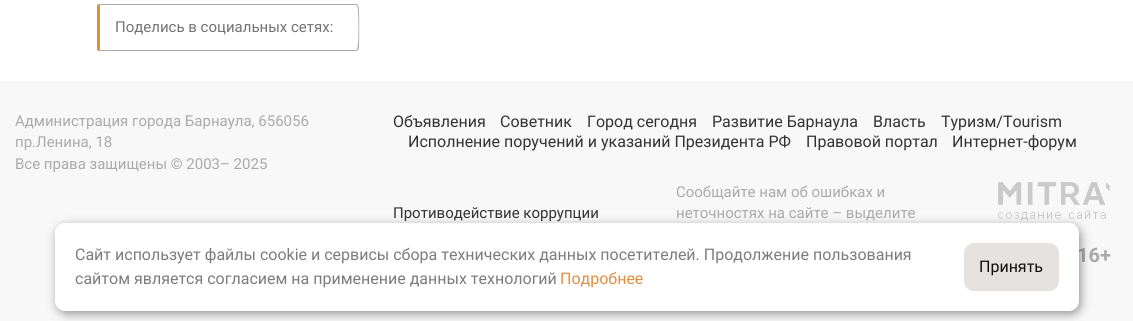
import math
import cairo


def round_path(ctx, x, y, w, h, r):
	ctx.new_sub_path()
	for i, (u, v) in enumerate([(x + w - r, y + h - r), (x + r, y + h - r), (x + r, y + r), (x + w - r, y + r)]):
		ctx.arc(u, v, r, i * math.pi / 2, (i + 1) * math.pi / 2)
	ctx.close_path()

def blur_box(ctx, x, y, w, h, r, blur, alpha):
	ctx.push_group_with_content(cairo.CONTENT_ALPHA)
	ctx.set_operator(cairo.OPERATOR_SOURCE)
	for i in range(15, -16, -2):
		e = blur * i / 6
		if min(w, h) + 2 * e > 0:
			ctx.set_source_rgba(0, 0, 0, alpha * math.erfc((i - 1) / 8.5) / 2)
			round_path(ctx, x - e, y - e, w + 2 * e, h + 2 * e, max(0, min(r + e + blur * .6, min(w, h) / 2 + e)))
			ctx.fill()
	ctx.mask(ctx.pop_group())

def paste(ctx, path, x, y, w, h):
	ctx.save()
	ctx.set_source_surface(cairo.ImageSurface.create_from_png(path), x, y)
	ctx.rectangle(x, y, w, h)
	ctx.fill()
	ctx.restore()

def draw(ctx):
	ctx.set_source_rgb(1, 1, 1)
	ctx.paint()
	ctx.set_source_rgb(0.667, 0.667, 0.667)
	ctx.new_path()
	ctx.move_to(100, 4)
	ctx.line_to(98, 4)
	ctx.line_to(100, 5)
	ctx.line_to(356, 5)
	ctx.line_to(357, 6)
	ctx.line_to(358, 5)
	ctx.line_to(356, 4)
	ctx.close_path()
	ctx.fill()
	ctx.new_path()
	ctx.move_to(359, 48)
	ctx.curve_to(359, 43, 360, 7, 358, 5)
	ctx.line_to(357, 6)
	ctx.curve_to(359, 7, 359, 48, 357, 49)
	ctx.line_to(358, 50)
	ctx.close_path()
	ctx.fill()
	ctx.new_path()
	ctx.move_to(100, 51)
	ctx.line_to(356, 51)
	ctx.line_to(358, 50)
	ctx.line_to(357, 49)
	ctx.line_to(356, 50)
	ctx.line_to(100, 50)
	ctx.line_to(98, 51)
	ctx.close_path()
	ctx.fill()
	ctx.set_source_rgb(0.878, 0.561, 0.251)
	ctx.new_path()
	ctx.move_to(100, 5)
	ctx.line_to(98, 4)
	ctx.curve_to(97, 5, 97, 6, 97, 7)
	ctx.line_to(97, 48)
	ctx.curve_to(97, 49, 97, 50, 98, 51)
	ctx.line_to(100, 50)
	ctx.close_path()
	ctx.fill()
	ctx.select_font_face('Roboto')
	ctx.set_font_size(15)
	ctx.set_source_rgb(0.451, 0.451, 0.451)
	ctx.move_to(115, 32)
	ctx.show_text('Поделись в социальных сетях:')
	ctx.set_source_rgb(0.969, 0.969, 0.969)
	ctx.rectangle(0, 81, 1133, 240)
	ctx.fill()
	ctx.set_source_rgb(0.667, 0.667, 0.667)
	for x, y, s in [
		(15, 126, 'Администрация города Барнаула, 656056'),
		(15, 147, 'пр.Ленина, 18'),
		(15, 169, 'Все права защищены © 2003– 2025'),
	]:
		ctx.move_to(x, y)
		ctx.show_text(s)
	ctx.set_font_size(16)
	ctx.set_source_rgb(0.2, 0.2, 0.2)
	for x, y, s in [
		(393, 127, 'Объявления'),
		(500, 127, 'Советник'),
		(587, 127, 'Город сегодня'),
		(712, 127, 'Развитие Барнаула'),
		(873, 127, 'Власть'),
		(941, 127, 'Туризм/Tourism'),
		(408, 147, 'Исполнение поручений и указаний Президента РФ'),
		(806, 147, 'Правовой портал'),
		(952, 147, 'Интернет-форум'),
	]:
		ctx.move_to(x, y)
		ctx.show_text(s)
	ctx.set_font_size(15)
	ctx.move_to(393, 218)
	ctx.show_text('Противодействие коррупции')
	ctx.set_source_rgb(0.667, 0.667, 0.667)
	ctx.move_to(676, 197)
	ctx.show_text('Сообщайте нам об ошибках и')
	ctx.move_to(676, 218)
	ctx.show_text('неточностях на сайте – выделите')
	paste(ctx, 'media/1.png', 998, 182, 113, 39)
	ctx.select_font_face('Roboto', cairo.FONT_SLANT_NORMAL, cairo.FONT_WEIGHT_BOLD)
	ctx.set_font_size(20)
	ctx.move_to(1077, 262)
	ctx.show_text('16+')
	ctx.set_source_rgb(0, 0, 0)
	blur_box(ctx, 57, 226, 1024, 88, 10, 5, 0.4)
	ctx.set_source_rgb(1, 1, 1)
	round_path(ctx, 55, 223, 1024, 88, 10)
	ctx.fill()
	ctx.select_font_face('Roboto')
	ctx.set_font_size(16)
	ctx.set_source_rgb(0.486, 0.486, 0.486)
	ctx.move_to(75, 260)
	ctx.show_text('Сайт использует файлы cookie и сервисы сбора технических данных посетителей. Продолжение пользования')
	ctx.move_to(75, 284)
	ctx.show_text('сайтом является согласием на применение данных технологий')
	ctx.set_source_rgb(0.878, 0.561, 0.251)
	ctx.move_to(560, 284)
	ctx.show_text('Подробнее')
	ctx.set_source_rgb(0.898, 0.886, 0.878)
	round_path(ctx, 964, 243, 95, 48, 10)
	ctx.fill()
	ctx.set_source_rgb(0.063, 0.055, 0.055)
	ctx.move_to(979, 272)
	ctx.show_text('Принять')


surface = cairo.ImageSurface(cairo.FORMAT_RGB24, 1133, 321)
ctx = cairo.Context(surface)
options = cairo.FontOptions()
options.set_hint_metrics(cairo.HINT_METRICS_OFF)
options.set_hint_style(cairo.HINT_STYLE_NONE)
ctx.set_font_options(options)
ctx.set_miter_limit(4)
draw(ctx)
surface.write_to_png('image.png')
